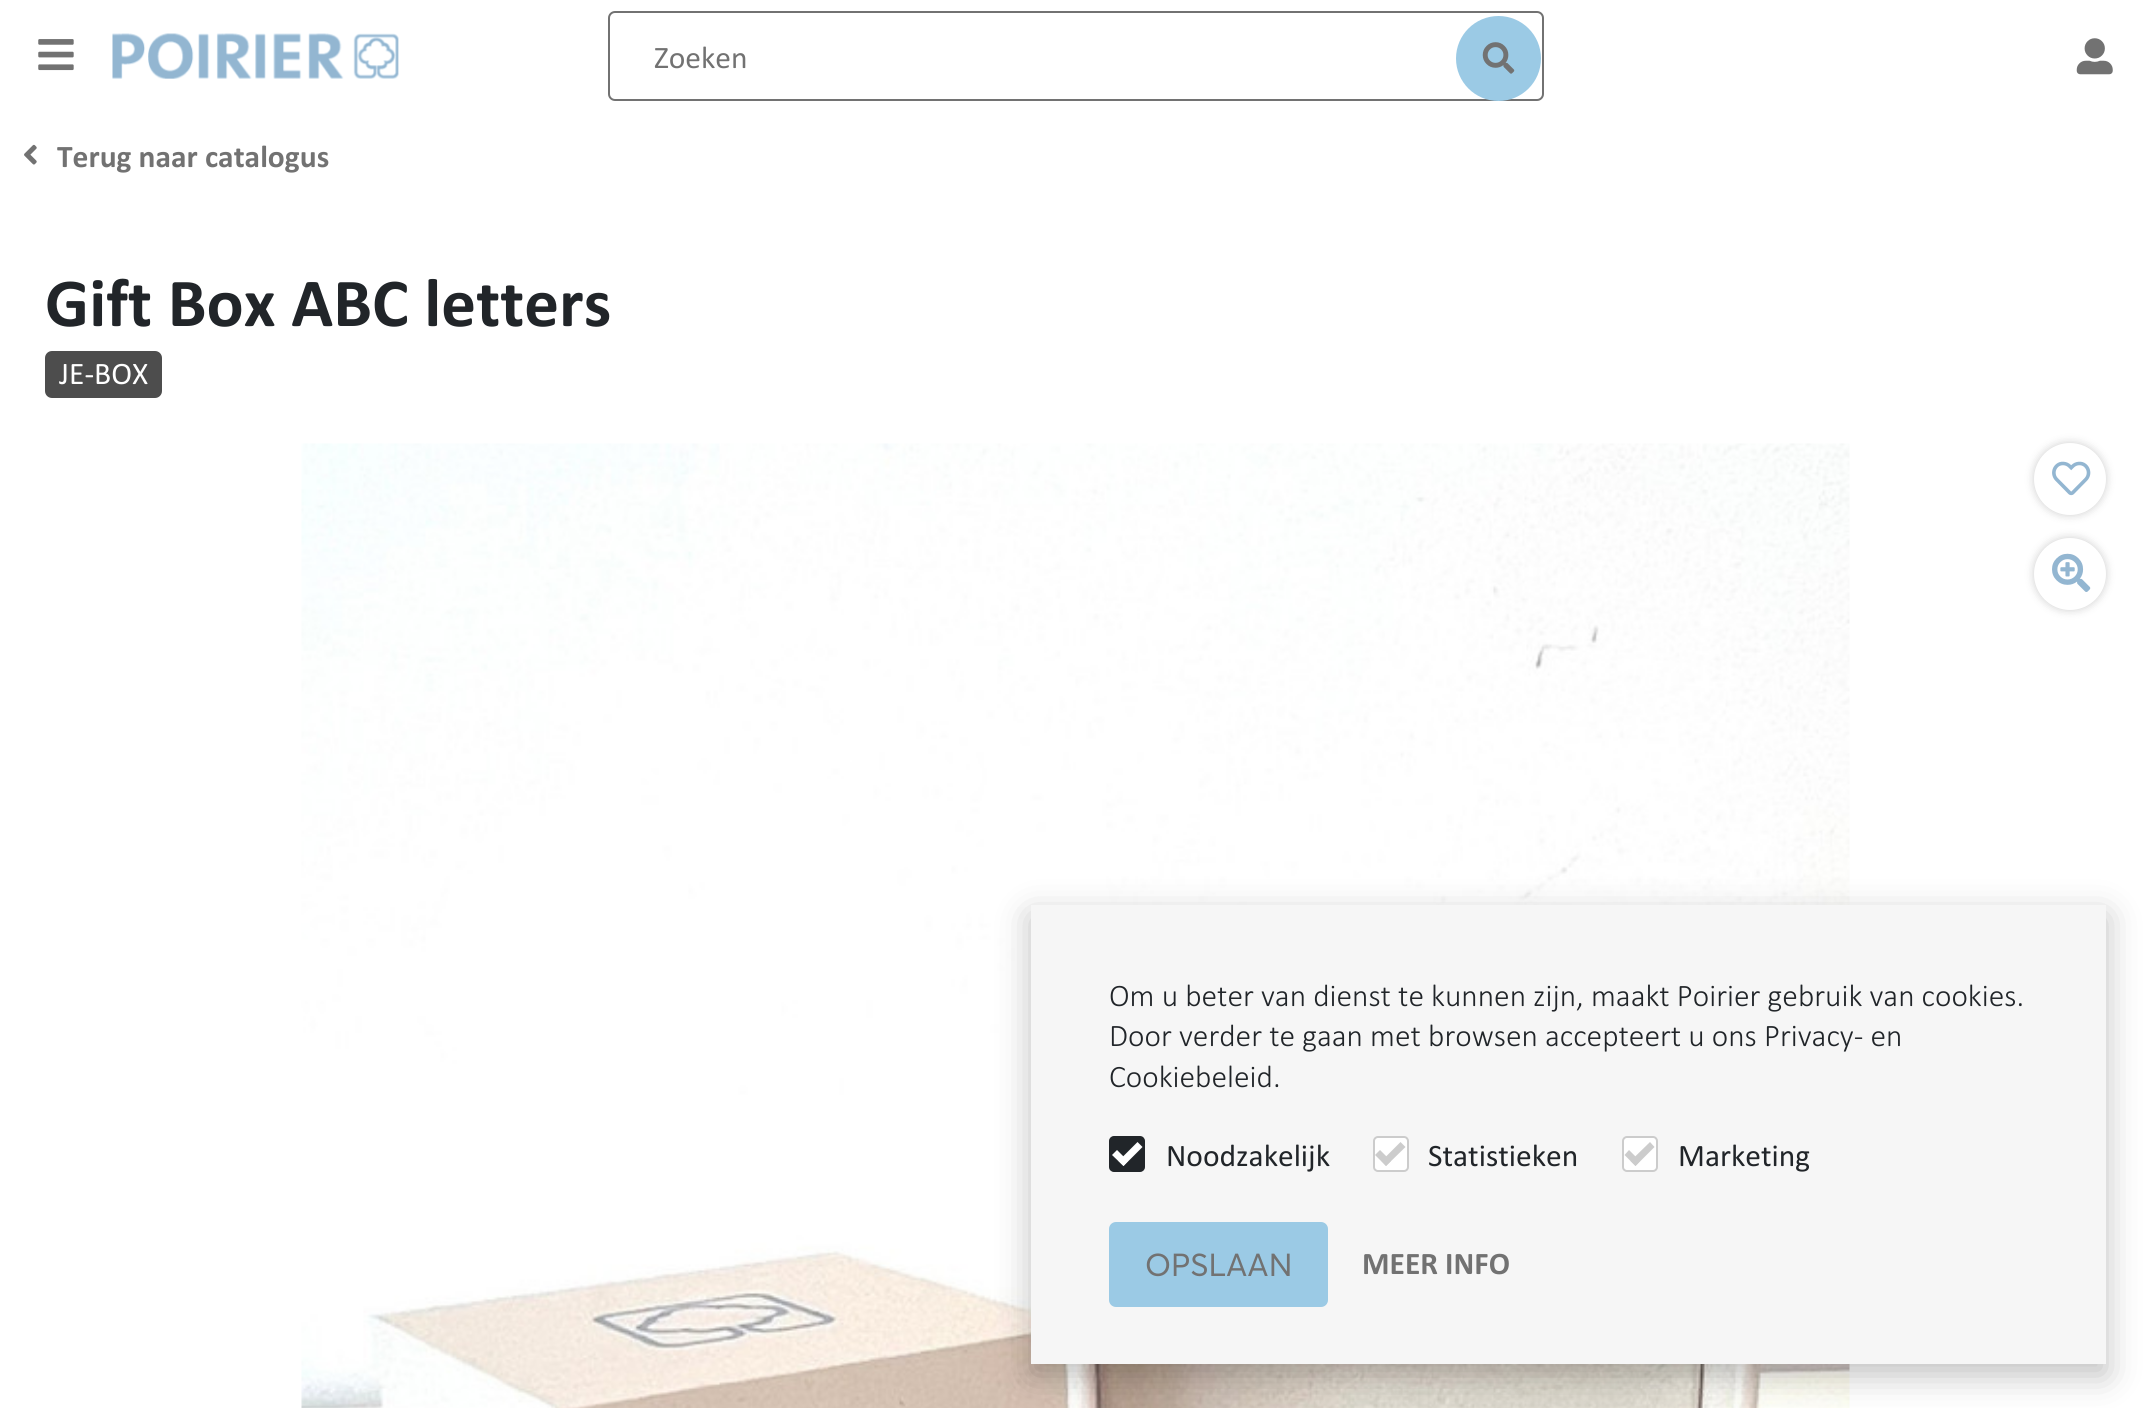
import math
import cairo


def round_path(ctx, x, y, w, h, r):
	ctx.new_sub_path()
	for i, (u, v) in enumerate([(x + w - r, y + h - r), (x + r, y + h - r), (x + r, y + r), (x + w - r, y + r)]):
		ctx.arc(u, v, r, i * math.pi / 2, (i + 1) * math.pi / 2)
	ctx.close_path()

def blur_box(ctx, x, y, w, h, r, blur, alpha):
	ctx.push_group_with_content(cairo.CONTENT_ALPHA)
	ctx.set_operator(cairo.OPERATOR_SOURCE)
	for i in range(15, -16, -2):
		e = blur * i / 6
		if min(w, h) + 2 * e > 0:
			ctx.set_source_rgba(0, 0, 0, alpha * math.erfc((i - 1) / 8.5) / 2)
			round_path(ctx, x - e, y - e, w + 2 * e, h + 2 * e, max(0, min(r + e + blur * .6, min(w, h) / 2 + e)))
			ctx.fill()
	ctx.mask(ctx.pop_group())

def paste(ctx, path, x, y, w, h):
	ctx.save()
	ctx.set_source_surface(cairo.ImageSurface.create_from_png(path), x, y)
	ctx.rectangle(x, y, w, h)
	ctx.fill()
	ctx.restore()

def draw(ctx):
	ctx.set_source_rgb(1, 1, 1)
	ctx.paint()
	paste(ctx, 'media/1.png', 38, 39, 36, 32)
	paste(ctx, 'media/2.png', 112, 33, 287, 46)
	round_path(ctx, 609, 12, 934, 88, 6)
	ctx.set_source_rgb(0.447, 0.447, 0.447)
	ctx.stroke()
	ctx.select_font_face('Calibri')
	ctx.set_font_size(31.5)
	ctx.move_to(654, 68)
	ctx.show_text('Zoeken')
	ctx.set_source_rgb(0.608, 0.792, 0.898)
	ctx.new_path()
	ctx.arc(1498.5, 58.5, 42.5, 0, 2 * math.pi)
	ctx.fill()
	paste(ctx, 'media/3.png', 1482, 42, 33, 32)
	paste(ctx, 'media/4.png', 2076, 38, 37, 37)
	paste(ctx, 'media/5.png', 24, 144, 13, 21)
	ctx.select_font_face('Calibri', cairo.FONT_SLANT_NORMAL, cairo.FONT_WEIGHT_BOLD)
	ctx.set_source_rgb(0.447, 0.447, 0.447)
	ctx.move_to(57, 167)
	ctx.show_text('Terug naar catalogus')
	ctx.set_font_size(69.25)
	ctx.set_source_rgb(0.129, 0.145, 0.161)
	ctx.move_to(45, 326)
	ctx.show_text('Gift Box ABC letters')
	ctx.set_source_rgb(0.302, 0.302, 0.302)
	round_path(ctx, 45, 351, 117, 47, 7)
	ctx.fill()
	ctx.select_font_face('Calibri')
	ctx.set_font_size(31.5)
	ctx.set_source_rgb(1, 1, 1)
	ctx.move_to(59, 384)
	ctx.show_text('JE-BOX')
	paste(ctx, 'media/6.png', 301, 443, 1549, 965)
	ctx.set_source_rgb(0, 0, 0)
	blur_box(ctx, 2034, 443, 72, 72, 36, 4.5, 0.2)
	ctx.set_source_rgb(1, 1, 1)
	ctx.arc(2070, 479, 36, 0, 2 * math.pi)
	ctx.fill()
	paste(ctx, 'media/7.png', 2052, 461, 39, 35)
	ctx.set_source_rgb(0, 0, 0)
	blur_box(ctx, 2034, 538, 72, 72, 36, 4.5, 0.2)
	ctx.set_source_rgb(1, 1, 1)
	ctx.arc(2070, 574, 36, 0, 2 * math.pi)
	ctx.fill()
	paste(ctx, 'media/8.png', 2052, 553, 39, 39)
	ctx.set_source_rgb(0, 0, 0)
	blur_box(ctx, 1031, 916, 1075, 459, 0, 17, 0.25)
	ctx.set_source_rgb(0.961, 0.961, 0.961)
	ctx.rectangle(1031, 905, 1075, 459)
	ctx.fill()
	ctx.select_font_face('Calibri Light')
	ctx.set_source_rgb(0.129, 0.145, 0.161)
	for x, y, s in [
		(1109, 1006, 'Om u beter van dienst te kunnen zijn, maakt Poirier gebruik van cookies.'),
		(1109, 1046, 'Door verder te gaan met browsen accepteert u ons Privacy- en'),
		(1109, 1087, 'Cookiebeleid.'),
	]:
		ctx.move_to(x, y)
		ctx.show_text(s)
	round_path(ctx, 1110, 1137, 34, 34, 4)
	ctx.fill_preserve()
	ctx.stroke()
	ctx.set_source_rgb(1, 1, 1)
	ctx.new_path()
	ctx.move_to(1118.5, 1161)
	ctx.line_to(1137.5, 1142)
	ctx.line_to(1142.5, 1147)
	ctx.line_to(1123.5, 1166)
	ctx.close_path()
	ctx.fill()
	ctx.new_path()
	ctx.move_to(1112, 1155)
	ctx.line_to(1117, 1150)
	ctx.line_to(1128, 1161)
	ctx.line_to(1123.5, 1166)
	ctx.close_path()
	ctx.fill()
	ctx.select_font_face('Calibri')
	ctx.set_source_rgb(0.129, 0.145, 0.161)
	ctx.move_to(1166, 1166)
	ctx.show_text('Noodzakelijk')
	ctx.set_source_rgb(1, 1, 1)
	round_path(ctx, 1374, 1137, 34, 34, 4)
	ctx.fill_preserve()
	ctx.set_source_rgb(0.8, 0.8, 0.8)
	ctx.stroke()
	ctx.new_path()
	ctx.move_to(1381.5, 1161)
	ctx.line_to(1400.5, 1142)
	ctx.line_to(1405.5, 1147)
	ctx.line_to(1386, 1166)
	ctx.close_path()
	ctx.fill()
	ctx.new_path()
	ctx.move_to(1375, 1155)
	ctx.line_to(1380, 1150)
	ctx.line_to(1391, 1161)
	ctx.line_to(1386, 1166)
	ctx.close_path()
	ctx.fill()
	ctx.set_source_rgb(0.129, 0.145, 0.161)
	ctx.move_to(1428, 1166)
	ctx.show_text('Statistieken')
	ctx.set_source_rgb(1, 1, 1)
	round_path(ctx, 1623, 1137, 34, 34, 4)
	ctx.fill_preserve()
	ctx.set_source_rgb(0.8, 0.8, 0.8)
	ctx.stroke()
	ctx.new_path()
	ctx.move_to(1630.5, 1161)
	ctx.line_to(1650, 1142)
	ctx.line_to(1654.5, 1147)
	ctx.line_to(1635.5, 1166)
	ctx.close_path()
	ctx.fill()
	ctx.new_path()
	ctx.move_to(1624.5, 1155)
	ctx.line_to(1629, 1150)
	ctx.line_to(1640, 1161)
	ctx.line_to(1635.5, 1166)
	ctx.close_path()
	ctx.fill()
	ctx.set_source_rgb(0.129, 0.145, 0.161)
	ctx.move_to(1678, 1166)
	ctx.show_text('Marketing')
	ctx.set_source_rgb(0.608, 0.792, 0.898)
	round_path(ctx, 1109, 1222, 219, 85, 7)
	ctx.fill()
	ctx.select_font_face('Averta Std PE')
	ctx.set_source_rgb(0.447, 0.447, 0.447)
	ctx.move_to(1145, 1276)
	ctx.show_text('OPSLAAN')
	ctx.select_font_face('Calibri', cairo.FONT_SLANT_NORMAL, cairo.FONT_WEIGHT_BOLD)
	ctx.move_to(1362, 1274)
	ctx.show_text('MEER INFO')


surface = cairo.ImageSurface(cairo.FORMAT_RGB24, 2150, 1408)
ctx = cairo.Context(surface)
options = cairo.FontOptions()
options.set_hint_metrics(cairo.HINT_METRICS_OFF)
options.set_hint_style(cairo.HINT_STYLE_NONE)
ctx.set_font_options(options)
ctx.set_miter_limit(4)
draw(ctx)
surface.write_to_png('image.png')
